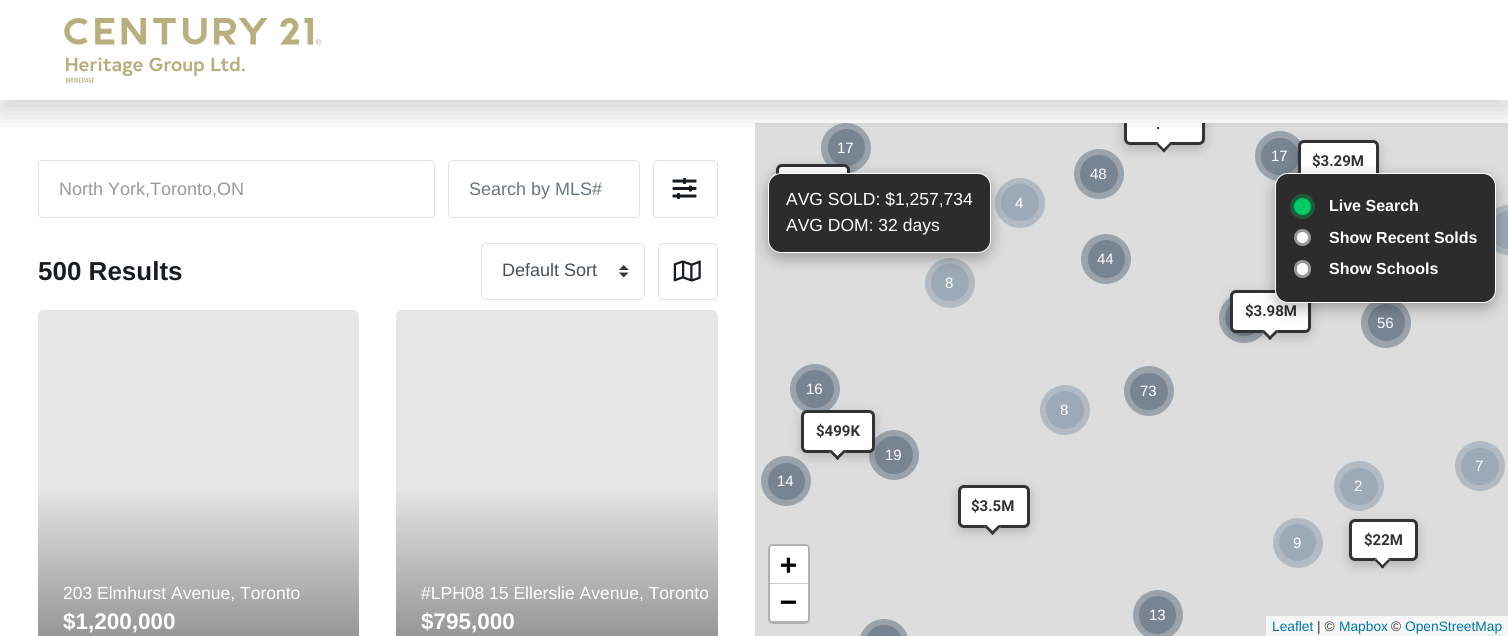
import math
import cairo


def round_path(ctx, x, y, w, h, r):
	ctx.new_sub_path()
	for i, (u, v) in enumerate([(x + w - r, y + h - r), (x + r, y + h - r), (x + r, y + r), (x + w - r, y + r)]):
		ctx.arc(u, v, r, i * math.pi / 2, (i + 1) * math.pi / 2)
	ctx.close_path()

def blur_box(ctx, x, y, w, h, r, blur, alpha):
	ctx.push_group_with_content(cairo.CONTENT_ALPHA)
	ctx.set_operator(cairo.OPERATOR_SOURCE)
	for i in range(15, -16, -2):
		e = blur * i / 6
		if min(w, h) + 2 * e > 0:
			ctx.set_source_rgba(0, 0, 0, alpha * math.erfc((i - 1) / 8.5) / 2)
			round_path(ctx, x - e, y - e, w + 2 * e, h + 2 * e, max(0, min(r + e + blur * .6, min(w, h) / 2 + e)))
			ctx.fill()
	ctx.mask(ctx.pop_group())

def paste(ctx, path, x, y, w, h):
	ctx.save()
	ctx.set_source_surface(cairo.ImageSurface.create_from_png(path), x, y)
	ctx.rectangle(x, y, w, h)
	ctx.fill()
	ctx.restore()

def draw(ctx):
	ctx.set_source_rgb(1, 1, 1)
	ctx.paint()
	ctx.set_source_rgb(0.867, 0.867, 0.867)
	ctx.rectangle(755, 123, 753, 513)
	ctx.fill()
	ctx.set_source_rgb(0.604, 0.639, 0.675)
	ctx.arc(1099, 174, 25, 0, 2 * math.pi)
	ctx.fill()
	ctx.set_source_rgb(0.467, 0.522, 0.573)
	ctx.arc(1099, 174, 19, 0, 2 * math.pi)
	ctx.fill()
	ctx.save()
	ctx.rectangle(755, 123, 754, 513)
	ctx.clip()
	ctx.set_source_rgb(0, 0, 0)
	blur_box(ctx, 1124, 106, 81, 43, 6, 6, 0.2)
	ctx.restore()
	ctx.set_source_rgb(1, 1, 1)
	ctx.new_path()
	ctx.move_to(1124, 123)
	ctx.line_to(1205, 123)
	ctx.line_to(1205, 139)
	ctx.curve_to(1205, 142.5, 1202.5, 145, 1199, 145)
	ctx.line_to(1130, 145)
	ctx.curve_to(1126.5, 145, 1124, 142.5, 1124, 139)
	ctx.close_path()
	ctx.fill()
	ctx.save()
	ctx.rectangle(755, 123, 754, 513)
	ctx.clip()
	round_path(ctx, 1125.5, 104.5, 78, 39, 4.5)
	ctx.set_source_rgb(0.2, 0.2, 0.2)
	ctx.set_line_width(3)
	ctx.stroke()
	ctx.restore()
	ctx.new_path()
	ctx.move_to(1164, 136.5)
	ctx.line_to(1171.5, 144.5)
	ctx.line_to(1164, 152.5)
	ctx.line_to(1156, 144.5)
	ctx.close_path()
	ctx.fill()
	ctx.set_source_rgb(0.2, 0.2, 0.2)
	ctx.new_path()
	ctx.move_to(1170, 142.5)
	ctx.line_to(1171.5, 144.5)
	ctx.line_to(1164, 152.5)
	ctx.line_to(1162, 150.5)
	ctx.close_path()
	ctx.fill()
	ctx.new_path()
	ctx.move_to(1157.5, 142.5)
	ctx.line_to(1165.5, 150.5)
	ctx.line_to(1164, 152.5)
	ctx.line_to(1156, 144.5)
	ctx.close_path()
	ctx.fill()
	ctx.set_source_rgb(0.604, 0.639, 0.675)
	ctx.arc(846, 148, 25, 0, 2 * math.pi)
	ctx.fill()
	ctx.set_source_rgb(0.467, 0.522, 0.573)
	ctx.arc(846.5, 147.5, 18.5, 0, 2 * math.pi)
	ctx.fill()
	ctx.set_source_rgb(0.604, 0.639, 0.675)
	ctx.arc(1280, 156, 25, 0, 2 * math.pi)
	ctx.fill()
	ctx.set_source_rgb(0.467, 0.522, 0.573)
	round_path(ctx, 1261, 138, 38, 37, 18.5)
	ctx.fill()
	ctx.set_source_rgb(0, 0, 0)
	blur_box(ctx, 1298, 144, 81, 42, 6, 6, 0.2)
	ctx.set_source_rgb(1, 1, 1)
	round_path(ctx, 1299.5, 141.5, 78, 40, 4.5)
	ctx.fill_preserve()
	ctx.set_source_rgb(0.2, 0.2, 0.2)
	ctx.set_line_width(3)
	ctx.stroke()
	ctx.save()
	ctx.rectangle(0, 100, 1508, 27)
	ctx.clip()
	ctx.set_source_rgb(0, 0, 0)
	blur_box(ctx, 0, 13, 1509, 100, 0, 12.5, 0.16)
	ctx.restore()
	paste(ctx, 'media/1.png', 64, 17, 258, 66)
	round_path(ctx, 38.5, 160.5, 396, 57, 4.5)
	ctx.set_source_rgb(0.886, 0.886, 0.886)
	ctx.set_line_width(1)
	ctx.stroke()
	ctx.select_font_face('Liberation Sans')
	ctx.set_font_size(18)
	ctx.set_source_rgb(0.6, 0.6, 0.6)
	ctx.move_to(59, 195)
	ctx.show_text('North York,Toronto,ON')
	round_path(ctx, 448.5, 160.5, 191, 57, 4.5)
	ctx.set_source_rgb(0.886, 0.886, 0.886)
	ctx.stroke()
	ctx.set_source_rgb(0.424, 0.459, 0.49)
	ctx.move_to(469, 195)
	ctx.show_text('Search by MLS#')
	round_path(ctx, 653.5, 160.5, 64, 57, 4.5)
	ctx.set_source_rgb(0.886, 0.886, 0.886)
	ctx.stroke()
	paste(ctx, 'media/2.png', 672, 178, 25, 21)
	ctx.select_font_face('Liberation Sans', cairo.FONT_SLANT_NORMAL, cairo.FONT_WEIGHT_BOLD)
	ctx.set_font_size(26)
	ctx.set_source_rgb(0.098, 0.11, 0.125)
	ctx.move_to(38, 280)
	ctx.show_text('500 Results')
	paste(ctx, 'media/3.png', 619, 265, 10, 13)
	round_path(ctx, 481.5, 243.5, 163, 56, 4.5)
	ctx.set_source_rgb(0.886, 0.886, 0.886)
	ctx.stroke()
	ctx.select_font_face('Liberation Sans')
	ctx.set_font_size(18)
	ctx.set_source_rgb(0.286, 0.314, 0.341)
	ctx.move_to(502, 276)
	ctx.show_text('Default Sort')
	round_path(ctx, 658.5, 243.5, 59, 56, 4.5)
	ctx.set_source_rgb(0.886, 0.886, 0.886)
	ctx.stroke()
	paste(ctx, 'media/4.png', 673, 260, 28, 22)
	ctx.set_source_rgb(0.902, 0.902, 0.902)
	round_path(ctx, 38, 310, 321, 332, 6)
	ctx.fill()
	gradient = cairo.LinearGradient(198, 485, 198, 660)
	gradient.add_color_stop_rgba(0, 0.902, 0.902, 0.902, 1)
	gradient.add_color_stop_rgba(1, 0.541, 0.541, 0.541, 1)
	ctx.set_source(gradient)
	ctx.rectangle(38, 490, 321, 146)
	ctx.fill()
	ctx.set_font_size(17.5)
	ctx.set_source_rgb(1, 1, 1)
	ctx.move_to(63, 599)
	ctx.show_text('203 Elmhurst Avenue, Toronto')
	ctx.select_font_face('Liberation Sans', cairo.FONT_SLANT_NORMAL, cairo.FONT_WEIGHT_BOLD)
	ctx.set_font_size(22.5)
	ctx.move_to(63, 629)
	ctx.show_text('$1,200,000')
	ctx.set_source_rgb(0.902, 0.902, 0.902)
	round_path(ctx, 396, 310, 322, 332, 6)
	ctx.fill()
	gradient = cairo.LinearGradient(557, 485, 557, 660)
	gradient.add_color_stop_rgba(0, 0.902, 0.902, 0.902, 1)
	gradient.add_color_stop_rgba(1, 0.541, 0.541, 0.541, 1)
	ctx.set_source(gradient)
	ctx.rectangle(396, 490, 322, 146)
	ctx.fill()
	ctx.select_font_face('Liberation Sans')
	ctx.set_font_size(17.5)
	ctx.set_source_rgb(1, 1, 1)
	ctx.move_to(421, 599)
	ctx.show_text('#LPH08 15 Ellerslie Avenue, Toronto')
	ctx.select_font_face('Liberation Sans', cairo.FONT_SLANT_NORMAL, cairo.FONT_WEIGHT_BOLD)
	ctx.set_font_size(22.5)
	ctx.move_to(421, 629)
	ctx.show_text('$795,000')
	ctx.set_source_rgb(0.961, 0.961, 0.961)
	ctx.rectangle(1266, 616, 242, 20)
	ctx.fill()
	ctx.select_font_face('Roboto', cairo.FONT_SLANT_NORMAL, cairo.FONT_WEIGHT_BOLD)
	ctx.set_font_size(15)
	ctx.set_source_rgb(0.2, 0.2, 0.2)
	ctx.move_to(1156, 129)
	ctx.show_text('.')
	ctx.select_font_face('Liberation Sans')
	ctx.set_source_rgb(1, 1, 1)
	ctx.move_to(837, 153)
	ctx.show_text('17')
	ctx.set_source_rgb(0, 0, 0)
	blur_box(ctx, 776, 168, 74, 42, 6, 6, 0.2)
	ctx.set_source_rgb(1, 1, 1)
	round_path(ctx, 777.5, 165.5, 71, 39, 4.5)
	ctx.fill_preserve()
	ctx.set_source_rgb(0.2, 0.2, 0.2)
	ctx.set_line_width(3)
	ctx.stroke()
	ctx.set_source_rgb(1, 1, 1)
	ctx.move_to(1271, 161)
	ctx.show_text('17')
	ctx.select_font_face('Roboto', cairo.FONT_SLANT_NORMAL, cairo.FONT_WEIGHT_BOLD)
	ctx.set_source_rgb(0.2, 0.2, 0.2)
	ctx.move_to(1312, 166)
	ctx.show_text('$3.29M')
	ctx.select_font_face('Liberation Sans')
	ctx.set_source_rgb(1, 1, 1)
	ctx.move_to(1090, 179)
	ctx.show_text('48')
	ctx.set_source_rgb(0.698, 0.733, 0.769)
	ctx.new_path()
	ctx.arc(1020, 203, 25, 0, 2 * math.pi)
	ctx.fill()
	ctx.set_source_rgb(0.612, 0.663, 0.718)
	round_path(ctx, 1001, 184, 38, 37, 18.5)
	ctx.fill()
	ctx.set_source_rgb(1, 1, 1)
	ctx.move_to(1015, 208)
	ctx.show_text('4')
	ctx.set_source_rgb(0.698, 0.733, 0.769)
	ctx.new_path()
	ctx.move_to(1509, 205)
	ctx.line_to(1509, 255)
	ctx.curve_to(1495, 255, 1484, 244, 1484, 230)
	ctx.curve_to(1484, 216, 1495, 205, 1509, 205)
	ctx.close_path()
	ctx.fill()
	ctx.set_source_rgb(0.612, 0.663, 0.718)
	ctx.new_path()
	ctx.move_to(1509, 211)
	ctx.line_to(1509, 249)
	ctx.curve_to(1498.5, 249, 1490, 240.5, 1490, 230)
	ctx.curve_to(1490, 219.5, 1498.5, 211, 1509, 211)
	ctx.close_path()
	ctx.fill()
	ctx.set_source_rgb(0.604, 0.639, 0.675)
	ctx.arc(1106, 259, 25, 0, 2 * math.pi)
	ctx.fill()
	ctx.set_source_rgb(0.467, 0.522, 0.573)
	round_path(ctx, 1088, 240, 37, 38, 18.5)
	ctx.fill()
	ctx.set_source_rgb(1, 1, 1)
	ctx.move_to(1097, 264)
	ctx.show_text('44')
	ctx.set_source_rgb(0.698, 0.733, 0.769)
	ctx.new_path()
	ctx.arc(950, 283, 25, 0, 2 * math.pi)
	ctx.fill()
	ctx.set_source_rgb(0.612, 0.663, 0.718)
	round_path(ctx, 931, 264, 38, 37, 18.5)
	ctx.fill()
	ctx.set_source_rgb(1, 1, 1)
	ctx.move_to(945, 288)
	ctx.show_text('8')
	ctx.set_source_rgb(0.604, 0.639, 0.675)
	ctx.new_path()
	ctx.arc(1244, 318, 25, 0, 2 * math.pi)
	ctx.fill()
	ctx.set_source_rgb(0.467, 0.522, 0.573)
	round_path(ctx, 1225, 299, 38, 37, 18.5)
	ctx.fill()
	ctx.set_source_rgb(0, 0, 0)
	blur_box(ctx, 1230, 294, 81, 42, 6, 6, 0.2)
	ctx.set_source_rgb(1, 1, 1)
	round_path(ctx, 1231.5, 291.5, 78, 40, 4.5)
	ctx.fill_preserve()
	ctx.set_source_rgb(0.2, 0.2, 0.2)
	ctx.stroke()
	ctx.select_font_face('Roboto', cairo.FONT_SLANT_NORMAL, cairo.FONT_WEIGHT_BOLD)
	ctx.move_to(1245, 316)
	ctx.show_text('$3.98M')
	ctx.set_source_rgb(1, 1, 1)
	ctx.new_path()
	ctx.move_to(1270, 324)
	ctx.line_to(1278, 332)
	ctx.line_to(1270, 340)
	ctx.line_to(1262, 332)
	ctx.close_path()
	ctx.fill()
	ctx.set_source_rgb(0.2, 0.2, 0.2)
	ctx.new_path()
	ctx.move_to(1276, 330)
	ctx.line_to(1278, 332)
	ctx.line_to(1270, 340)
	ctx.line_to(1268, 338)
	ctx.close_path()
	ctx.fill()
	ctx.new_path()
	ctx.move_to(1264, 330)
	ctx.line_to(1272, 338)
	ctx.line_to(1270, 340)
	ctx.line_to(1262, 332)
	ctx.close_path()
	ctx.fill()
	ctx.set_source_rgb(0.604, 0.639, 0.675)
	ctx.arc(1386, 323, 25, 0, 2 * math.pi)
	ctx.fill()
	ctx.set_source_rgb(0.467, 0.522, 0.573)
	ctx.arc(1386.5, 322.5, 18.5, 0, 2 * math.pi)
	ctx.fill()
	ctx.select_font_face('Liberation Sans')
	ctx.set_source_rgb(1, 1, 1)
	ctx.move_to(1377, 328)
	ctx.show_text('56')
	ctx.set_source_rgb(0.604, 0.639, 0.675)
	ctx.new_path()
	ctx.arc(815, 389, 25, 0, 2 * math.pi)
	ctx.fill()
	ctx.set_source_rgb(0.467, 0.522, 0.573)
	ctx.arc(815, 389, 19, 0, 2 * math.pi)
	ctx.fill()
	ctx.set_source_rgb(1, 1, 1)
	ctx.move_to(806, 394)
	ctx.show_text('16')
	ctx.set_source_rgb(0.604, 0.639, 0.675)
	ctx.new_path()
	ctx.arc(1149, 391, 25, 0, 2 * math.pi)
	ctx.fill()
	ctx.set_source_rgb(0.467, 0.522, 0.573)
	round_path(ctx, 1130, 373, 38, 37, 18.5)
	ctx.fill()
	ctx.set_source_rgb(1, 1, 1)
	ctx.move_to(1140, 396)
	ctx.show_text('73')
	ctx.set_source_rgb(0.698, 0.733, 0.769)
	ctx.new_path()
	ctx.arc(1065, 410, 25, 0, 2 * math.pi)
	ctx.fill()
	ctx.set_source_rgb(0.612, 0.663, 0.718)
	ctx.arc(1065, 410, 19, 0, 2 * math.pi)
	ctx.fill()
	ctx.set_source_rgb(1, 1, 1)
	ctx.move_to(1060, 415)
	ctx.show_text('8')
	ctx.set_source_rgb(0.604, 0.639, 0.675)
	ctx.new_path()
	ctx.arc(894, 455, 25, 0, 2 * math.pi)
	ctx.fill()
	ctx.set_source_rgb(0.467, 0.522, 0.573)
	ctx.arc(894, 455, 19, 0, 2 * math.pi)
	ctx.fill()
	ctx.set_source_rgb(0.604, 0.639, 0.675)
	ctx.arc(786, 481, 25, 0, 2 * math.pi)
	ctx.fill()
	ctx.set_source_rgb(0.467, 0.522, 0.573)
	ctx.arc(786.5, 481.5, 18.5, 0, 2 * math.pi)
	ctx.fill()
	ctx.set_source_rgb(0, 0, 0)
	blur_box(ctx, 801, 414, 74, 42, 6, 6, 0.2)
	ctx.set_source_rgb(1, 1, 1)
	round_path(ctx, 802.5, 411.5, 71, 40, 4.5)
	ctx.fill_preserve()
	ctx.set_source_rgb(0.2, 0.2, 0.2)
	ctx.stroke()
	ctx.select_font_face('Roboto', cairo.FONT_SLANT_NORMAL, cairo.FONT_WEIGHT_BOLD)
	ctx.move_to(816, 436)
	ctx.show_text('$499K')
	ctx.set_source_rgb(1, 1, 1)
	ctx.new_path()
	ctx.move_to(837.5, 444)
	ctx.line_to(845.5, 452)
	ctx.line_to(837.5, 460)
	ctx.line_to(829.5, 452)
	ctx.close_path()
	ctx.fill()
	ctx.set_source_rgb(0.2, 0.2, 0.2)
	ctx.new_path()
	ctx.move_to(843.5, 450)
	ctx.line_to(845.5, 452)
	ctx.line_to(837.5, 460)
	ctx.line_to(835.5, 458)
	ctx.close_path()
	ctx.fill()
	ctx.new_path()
	ctx.move_to(831.5, 450)
	ctx.line_to(839.5, 458)
	ctx.line_to(837.5, 460)
	ctx.line_to(829.5, 452)
	ctx.close_path()
	ctx.fill()
	ctx.select_font_face('Liberation Sans')
	ctx.set_source_rgb(1, 1, 1)
	ctx.move_to(885, 460)
	ctx.show_text('19')
	ctx.set_source_rgb(0.698, 0.733, 0.769)
	ctx.new_path()
	ctx.arc(1480, 466, 25, 0, 2 * math.pi)
	ctx.fill()
	ctx.set_source_rgb(0.612, 0.663, 0.718)
	round_path(ctx, 1461, 448, 38, 37, 18.5)
	ctx.fill()
	ctx.set_source_rgb(1, 1, 1)
	ctx.move_to(1475, 471)
	ctx.show_text('7')
	ctx.move_to(777, 486)
	ctx.show_text('14')
	ctx.set_source_rgb(0.698, 0.733, 0.769)
	ctx.new_path()
	ctx.arc(1359, 486, 25, 0, 2 * math.pi)
	ctx.fill()
	ctx.set_source_rgb(0.612, 0.663, 0.718)
	round_path(ctx, 1340, 468, 38, 37, 18.5)
	ctx.fill()
	ctx.set_source_rgb(1, 1, 1)
	ctx.move_to(1354, 491)
	ctx.show_text('2')
	ctx.set_source_rgb(0, 0, 0)
	blur_box(ctx, 958, 489, 72, 42, 6, 6, 0.2)
	ctx.set_source_rgb(1, 1, 1)
	round_path(ctx, 959.5, 486.5, 69, 40, 4.5)
	ctx.fill_preserve()
	ctx.set_source_rgb(0.2, 0.2, 0.2)
	ctx.stroke()
	ctx.select_font_face('Roboto', cairo.FONT_SLANT_NORMAL, cairo.FONT_WEIGHT_BOLD)
	ctx.move_to(971, 511)
	ctx.show_text('$3.5M')
	ctx.set_source_rgb(1, 1, 1)
	ctx.new_path()
	ctx.move_to(992.5, 519)
	ctx.line_to(1000.5, 527)
	ctx.line_to(992.5, 535)
	ctx.line_to(984.5, 527)
	ctx.close_path()
	ctx.fill()
	ctx.set_source_rgb(0.2, 0.2, 0.2)
	ctx.new_path()
	ctx.move_to(998.5, 525)
	ctx.line_to(1000.5, 527)
	ctx.line_to(992.5, 535)
	ctx.line_to(990.5, 533)
	ctx.close_path()
	ctx.fill()
	ctx.new_path()
	ctx.move_to(986.5, 525)
	ctx.line_to(994.5, 533)
	ctx.line_to(992.5, 535)
	ctx.line_to(984.5, 527)
	ctx.close_path()
	ctx.fill()
	ctx.set_source_rgb(0.698, 0.733, 0.769)
	ctx.arc(1298, 543, 25, 0, 2 * math.pi)
	ctx.fill()
	ctx.set_source_rgb(0.612, 0.663, 0.718)
	ctx.arc(1297.5, 542.5, 18.5, 0, 2 * math.pi)
	ctx.fill()
	ctx.select_font_face('Liberation Sans')
	ctx.set_source_rgb(1, 1, 1)
	ctx.move_to(1293, 548)
	ctx.show_text('9')
	ctx.set_source_rgb(0, 0, 0)
	blur_box(ctx, 1349, 523, 69, 42, 6, 6, 0.2)
	ctx.set_source_rgb(1, 1, 1)
	round_path(ctx, 1350.5, 520.5, 66, 39, 4.5)
	ctx.fill_preserve()
	ctx.set_source_rgb(0.2, 0.2, 0.2)
	ctx.stroke()
	ctx.select_font_face('Roboto', cairo.FONT_SLANT_NORMAL, cairo.FONT_WEIGHT_BOLD)
	ctx.move_to(1364, 545)
	ctx.show_text('$22M')
	ctx.set_source_rgb(1, 1, 1)
	ctx.new_path()
	ctx.move_to(1382.5, 552.5)
	ctx.line_to(1390.5, 560.5)
	ctx.line_to(1382.5, 568.5)
	ctx.line_to(1374.5, 560.5)
	ctx.close_path()
	ctx.fill()
	ctx.set_source_rgb(0.2, 0.2, 0.2)
	ctx.new_path()
	ctx.move_to(1388.5, 559)
	ctx.line_to(1390.5, 560.5)
	ctx.line_to(1382.5, 568.5)
	ctx.line_to(1380.5, 567)
	ctx.close_path()
	ctx.fill()
	ctx.new_path()
	ctx.move_to(1376.5, 559)
	ctx.line_to(1384.5, 567)
	ctx.line_to(1382.5, 568.5)
	ctx.line_to(1374.5, 560.5)
	ctx.close_path()
	ctx.fill()
	ctx.set_source_rgb(0.604, 0.639, 0.675)
	ctx.arc(1158, 615, 25, 0, 2 * math.pi)
	ctx.fill()
	ctx.set_source_rgb(0.467, 0.522, 0.573)
	round_path(ctx, 1139, 596, 37, 38, 18.5)
	ctx.fill()
	ctx.select_font_face('Liberation Sans')
	ctx.set_source_rgb(1, 1, 1)
	ctx.move_to(1149, 620)
	ctx.show_text('13')
	ctx.set_source_rgb(0.604, 0.639, 0.675)
	ctx.new_path()
	ctx.move_to(884, 619)
	ctx.curve_to(898, 619, 909, 630, 909, 644)
	ctx.line_to(909, 636)
	ctx.line_to(859, 636)
	ctx.line_to(859, 644)
	ctx.curve_to(859, 630, 870, 619, 884, 619)
	ctx.close_path()
	ctx.fill()
	ctx.set_source_rgb(0.467, 0.522, 0.573)
	ctx.new_path()
	ctx.move_to(884, 625)
	ctx.curve_to(894.5, 625, 903, 633.5, 903, 644)
	ctx.line_to(903, 636)
	ctx.line_to(865, 636)
	ctx.line_to(865, 644)
	ctx.curve_to(865, 633.5, 873.5, 625, 884, 625)
	ctx.close_path()
	ctx.fill()
	ctx.set_source_rgb(0.91, 0.922, 0.929)
	round_path(ctx, 1470, 634, 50, 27, 25)
	ctx.fill()
	ctx.set_source_rgb(0, 0, 0)
	blur_box(ctx, 768, 178, 223, 80, 13, 7.5, 0.3)
	ctx.set_source_rgb(0.173, 0.173, 0.173)
	round_path(ctx, 768.5, 173.5, 222, 79, 12.5)
	ctx.fill_preserve()
	ctx.set_source_rgb(1, 1, 1)
	ctx.set_line_width(1)
	ctx.stroke()
	ctx.set_font_size(17.5)
	ctx.move_to(786, 205)
	ctx.show_text('AVG SOLD: $1,257,734')
	ctx.move_to(786, 231)
	ctx.show_text('AVG DOM: 32 days')
	ctx.set_source_rgb(0, 0, 0)
	blur_box(ctx, 1275, 178, 221, 130, 13, 7.5, 0.3)
	ctx.set_source_rgb(0.173, 0.173, 0.173)
	round_path(ctx, 1275.5, 173.5, 220, 129, 12.5)
	ctx.fill_preserve()
	ctx.set_source_rgb(1, 1, 1)
	ctx.stroke()
	ctx.arc(1302.5, 206.5, 10.5, 0, 2 * math.pi)
	ctx.set_source_rgb(0.122, 0.361, 0.239)
	ctx.set_line_width(4)
	ctx.stroke()
	ctx.set_source_rgb(0, 0.8, 0.4)
	ctx.arc(1302.5, 206.5, 7, 0, 2 * math.pi)
	ctx.fill_preserve()
	ctx.set_line_width(3)
	ctx.stroke()
	ctx.select_font_face('Liberation Sans', cairo.FONT_SLANT_NORMAL, cairo.FONT_WEIGHT_BOLD)
	ctx.set_font_size(16)
	ctx.set_source_rgb(1, 1, 1)
	ctx.move_to(1329, 211)
	ctx.show_text('Live Search')
	ctx.new_path()
	ctx.arc(1302.5, 237.5, 7, 0, 2 * math.pi)
	ctx.fill_preserve()
	ctx.set_source_rgb(0.6, 0.6, 0.6)
	ctx.stroke()
	ctx.set_source_rgb(1, 1, 1)
	ctx.move_to(1329, 243)
	ctx.show_text('Show Recent Solds')
	round_path(ctx, 1295.5, 261.5, 14, 15, 7)
	ctx.fill_preserve()
	ctx.set_source_rgb(0.6, 0.6, 0.6)
	ctx.stroke()
	ctx.set_source_rgb(1, 1, 1)
	ctx.move_to(1329, 274)
	ctx.show_text('Show Schools')
	round_path(ctx, 769.5, 545.5, 39, 77, 3.5)
	ctx.set_source_rgb(0.694, 0.694, 0.694)
	ctx.stroke()
	ctx.set_source_rgb(1, 1, 1)
	ctx.new_path()
	ctx.move_to(772.5, 546)
	ctx.line_to(805.5, 546)
	ctx.curve_to(807, 546, 808, 547, 808, 548.5)
	ctx.line_to(808, 584)
	ctx.line_to(770, 584)
	ctx.line_to(770, 548.5)
	ctx.curve_to(770, 547, 771, 546, 772.5, 546)
	ctx.close_path()
	ctx.fill()
	ctx.set_source_rgb(0.8, 0.8, 0.8)
	ctx.rectangle(770, 583, 38, 1)
	ctx.fill()
	ctx.select_font_face('DejaVu Sans Mono', cairo.FONT_SLANT_NORMAL, cairo.FONT_WEIGHT_BOLD)
	ctx.set_font_size(28)
	ctx.set_source_rgb(0, 0, 0)
	ctx.move_to(780, 574)
	ctx.show_text('+')
	ctx.set_source_rgb(1, 1, 1)
	ctx.new_path()
	ctx.move_to(770, 584)
	ctx.line_to(808, 584)
	ctx.line_to(808, 618.5)
	ctx.curve_to(808, 620, 807, 621, 805.5, 621)
	ctx.line_to(772.5, 621)
	ctx.curve_to(771, 621, 770, 620, 770, 618.5)
	ctx.close_path()
	ctx.fill()
	ctx.set_source_rgb(0, 0, 0)
	ctx.move_to(780, 611)
	ctx.show_text('−')
	ctx.select_font_face('Liberation Sans')
	ctx.set_font_size(13.75)
	ctx.set_source_rgb(0, 0.471, 0.659)
	ctx.move_to(1272, 631)
	ctx.show_text('Leaflet')
	ctx.set_source_rgb(0.2, 0.2, 0.2)
	ctx.move_to(1317, 631)
	ctx.show_text('| ©')
	ctx.set_source_rgb(0, 0.471, 0.659)
	ctx.move_to(1339, 631)
	ctx.show_text('Mapbox')
	ctx.set_source_rgb(0.2, 0.2, 0.2)
	ctx.move_to(1391, 631)
	ctx.show_text('©')
	ctx.set_source_rgb(0, 0.471, 0.659)
	ctx.move_to(1405, 631)
	ctx.show_text('OpenStreetMap')


surface = cairo.ImageSurface(cairo.FORMAT_RGB24, 1508, 636)
ctx = cairo.Context(surface)
options = cairo.FontOptions()
options.set_hint_metrics(cairo.HINT_METRICS_OFF)
options.set_hint_style(cairo.HINT_STYLE_NONE)
ctx.set_font_options(options)
ctx.set_miter_limit(4)
draw(ctx)
surface.write_to_png('image.png')
